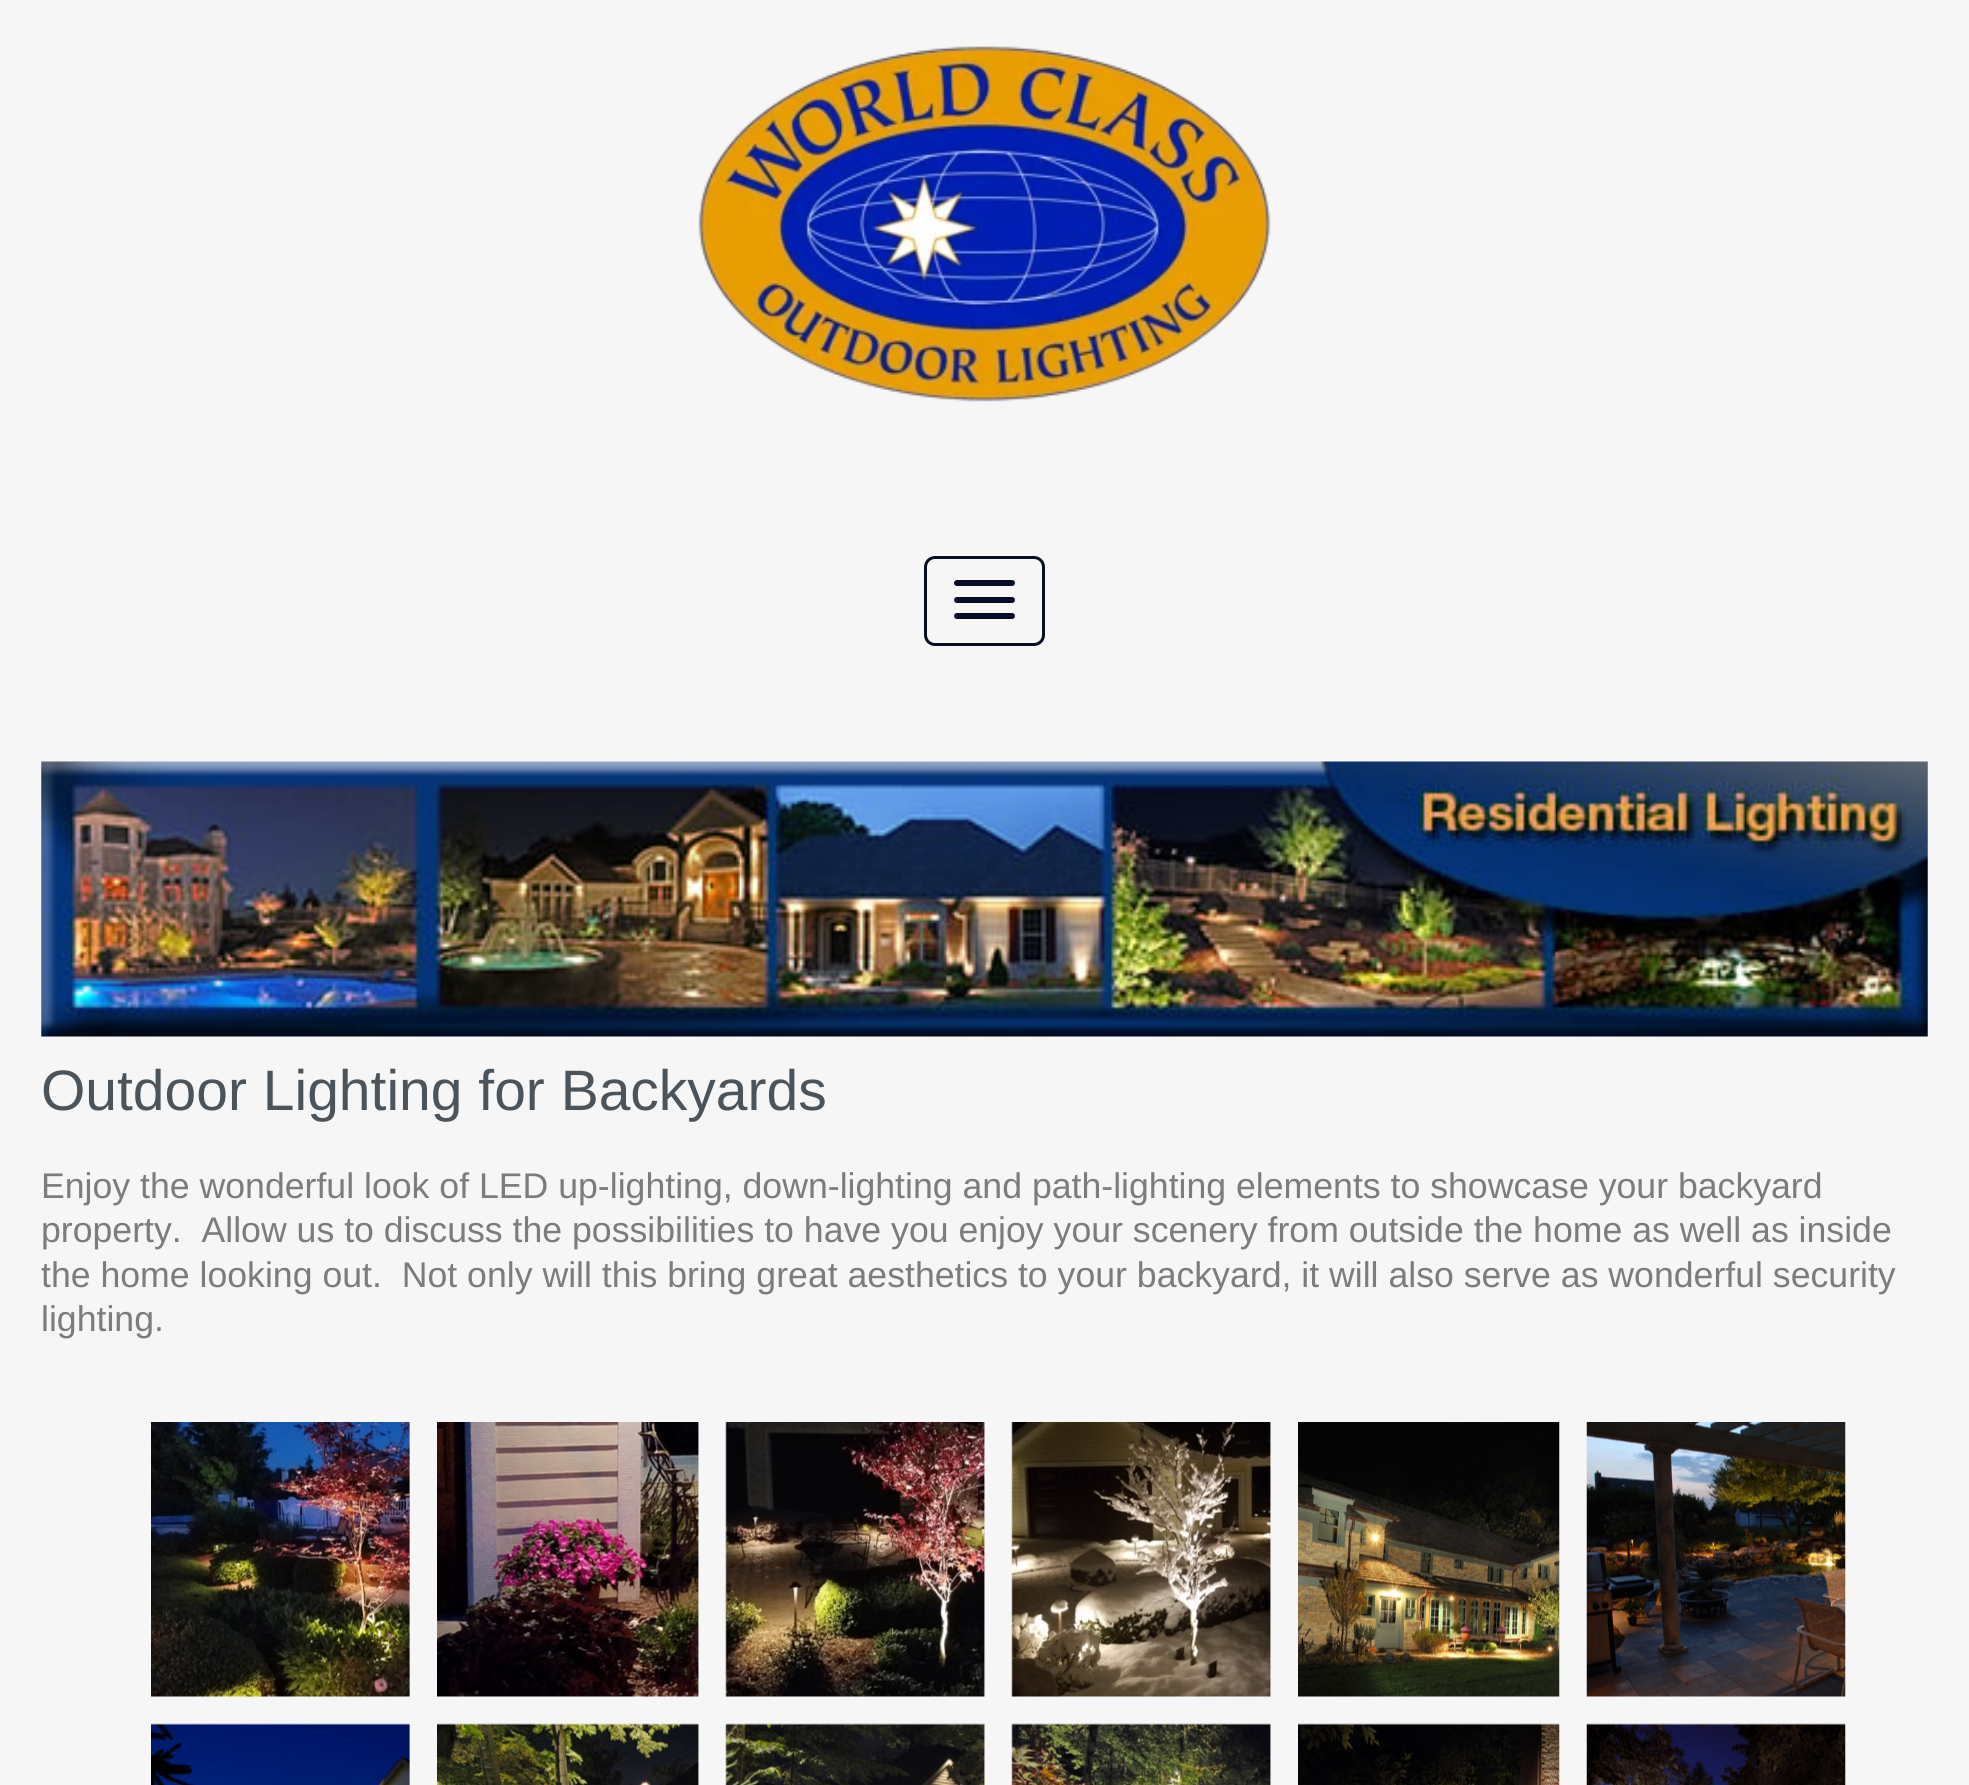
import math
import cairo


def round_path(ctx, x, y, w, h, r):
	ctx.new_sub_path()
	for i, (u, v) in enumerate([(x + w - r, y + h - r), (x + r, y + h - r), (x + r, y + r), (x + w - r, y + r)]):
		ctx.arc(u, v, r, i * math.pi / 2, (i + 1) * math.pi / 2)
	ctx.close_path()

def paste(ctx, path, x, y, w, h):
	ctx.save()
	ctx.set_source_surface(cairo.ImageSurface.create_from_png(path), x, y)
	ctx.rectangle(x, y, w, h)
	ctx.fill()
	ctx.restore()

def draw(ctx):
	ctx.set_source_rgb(0.961, 0.961, 0.961)
	ctx.paint()
	paste(ctx, 'media/1.png', 698, 46, 573, 356)
	round_path(ctx, 925.5, 557.5, 118, 87, 9.5)
	ctx.set_source_rgb(0.024, 0.051, 0.141)
	ctx.set_line_width(3)
	ctx.stroke()
	round_path(ctx, 954, 597, 61, 6, 3)
	ctx.fill()
	round_path(ctx, 954, 580, 61, 6, 3)
	ctx.fill()
	round_path(ctx, 954, 613, 61, 6, 3)
	ctx.fill()
	paste(ctx, 'media/2.png', 41, 761, 1887, 276)
	ctx.select_font_face('Liberation Sans')
	ctx.set_font_size(57)
	ctx.set_source_rgb(0.298, 0.329, 0.357)
	ctx.move_to(41, 1110)
	ctx.show_text('Outdoor Lighting for Backyards')
	ctx.set_font_size(35.65)
	ctx.set_source_rgb(0.486, 0.486, 0.486)
	for x, y, s in [
		(41, 1198, 'Enjoy the wonderful look of LED up-lighting, down-lighting and path-lighting elements to showcase your backyard'),
		(41, 1242, 'property.  Allow us to discuss the possibilities to have you enjoy your scenery from outside the home as well as inside'),
		(41, 1287, 'the home looking out.  Not only will this bring great aesthetics to your backyard, it will also serve as wonderful security'),
		(41, 1331, 'lighting.'),
	]:
		ctx.move_to(x, y)
		ctx.show_text(s)
	paste(ctx, 'media/3.png', 151, 1422, 259, 275)
	paste(ctx, 'media/4.png', 437, 1422, 262, 275)
	paste(ctx, 'media/5.png', 725, 1422, 260, 275)
	paste(ctx, 'media/6.png', 1011, 1422, 260, 275)
	paste(ctx, 'media/7.png', 1298, 1422, 262, 275)
	paste(ctx, 'media/8.png', 1586, 1422, 260, 275)
	paste(ctx, 'media/9.png', 151, 1723, 259, 62)
	paste(ctx, 'media/10.png', 437, 1723, 262, 62)
	paste(ctx, 'media/11.png', 725, 1723, 260, 62)
	paste(ctx, 'media/12.png', 1011, 1723, 260, 62)
	paste(ctx, 'media/13.png', 1298, 1723, 262, 62)
	paste(ctx, 'media/14.png', 1586, 1723, 260, 62)


surface = cairo.ImageSurface(cairo.FORMAT_RGB24, 1969, 1785)
ctx = cairo.Context(surface)
options = cairo.FontOptions()
options.set_hint_metrics(cairo.HINT_METRICS_OFF)
options.set_hint_style(cairo.HINT_STYLE_NONE)
ctx.set_font_options(options)
ctx.set_miter_limit(4)
draw(ctx)
surface.write_to_png('image.png')
